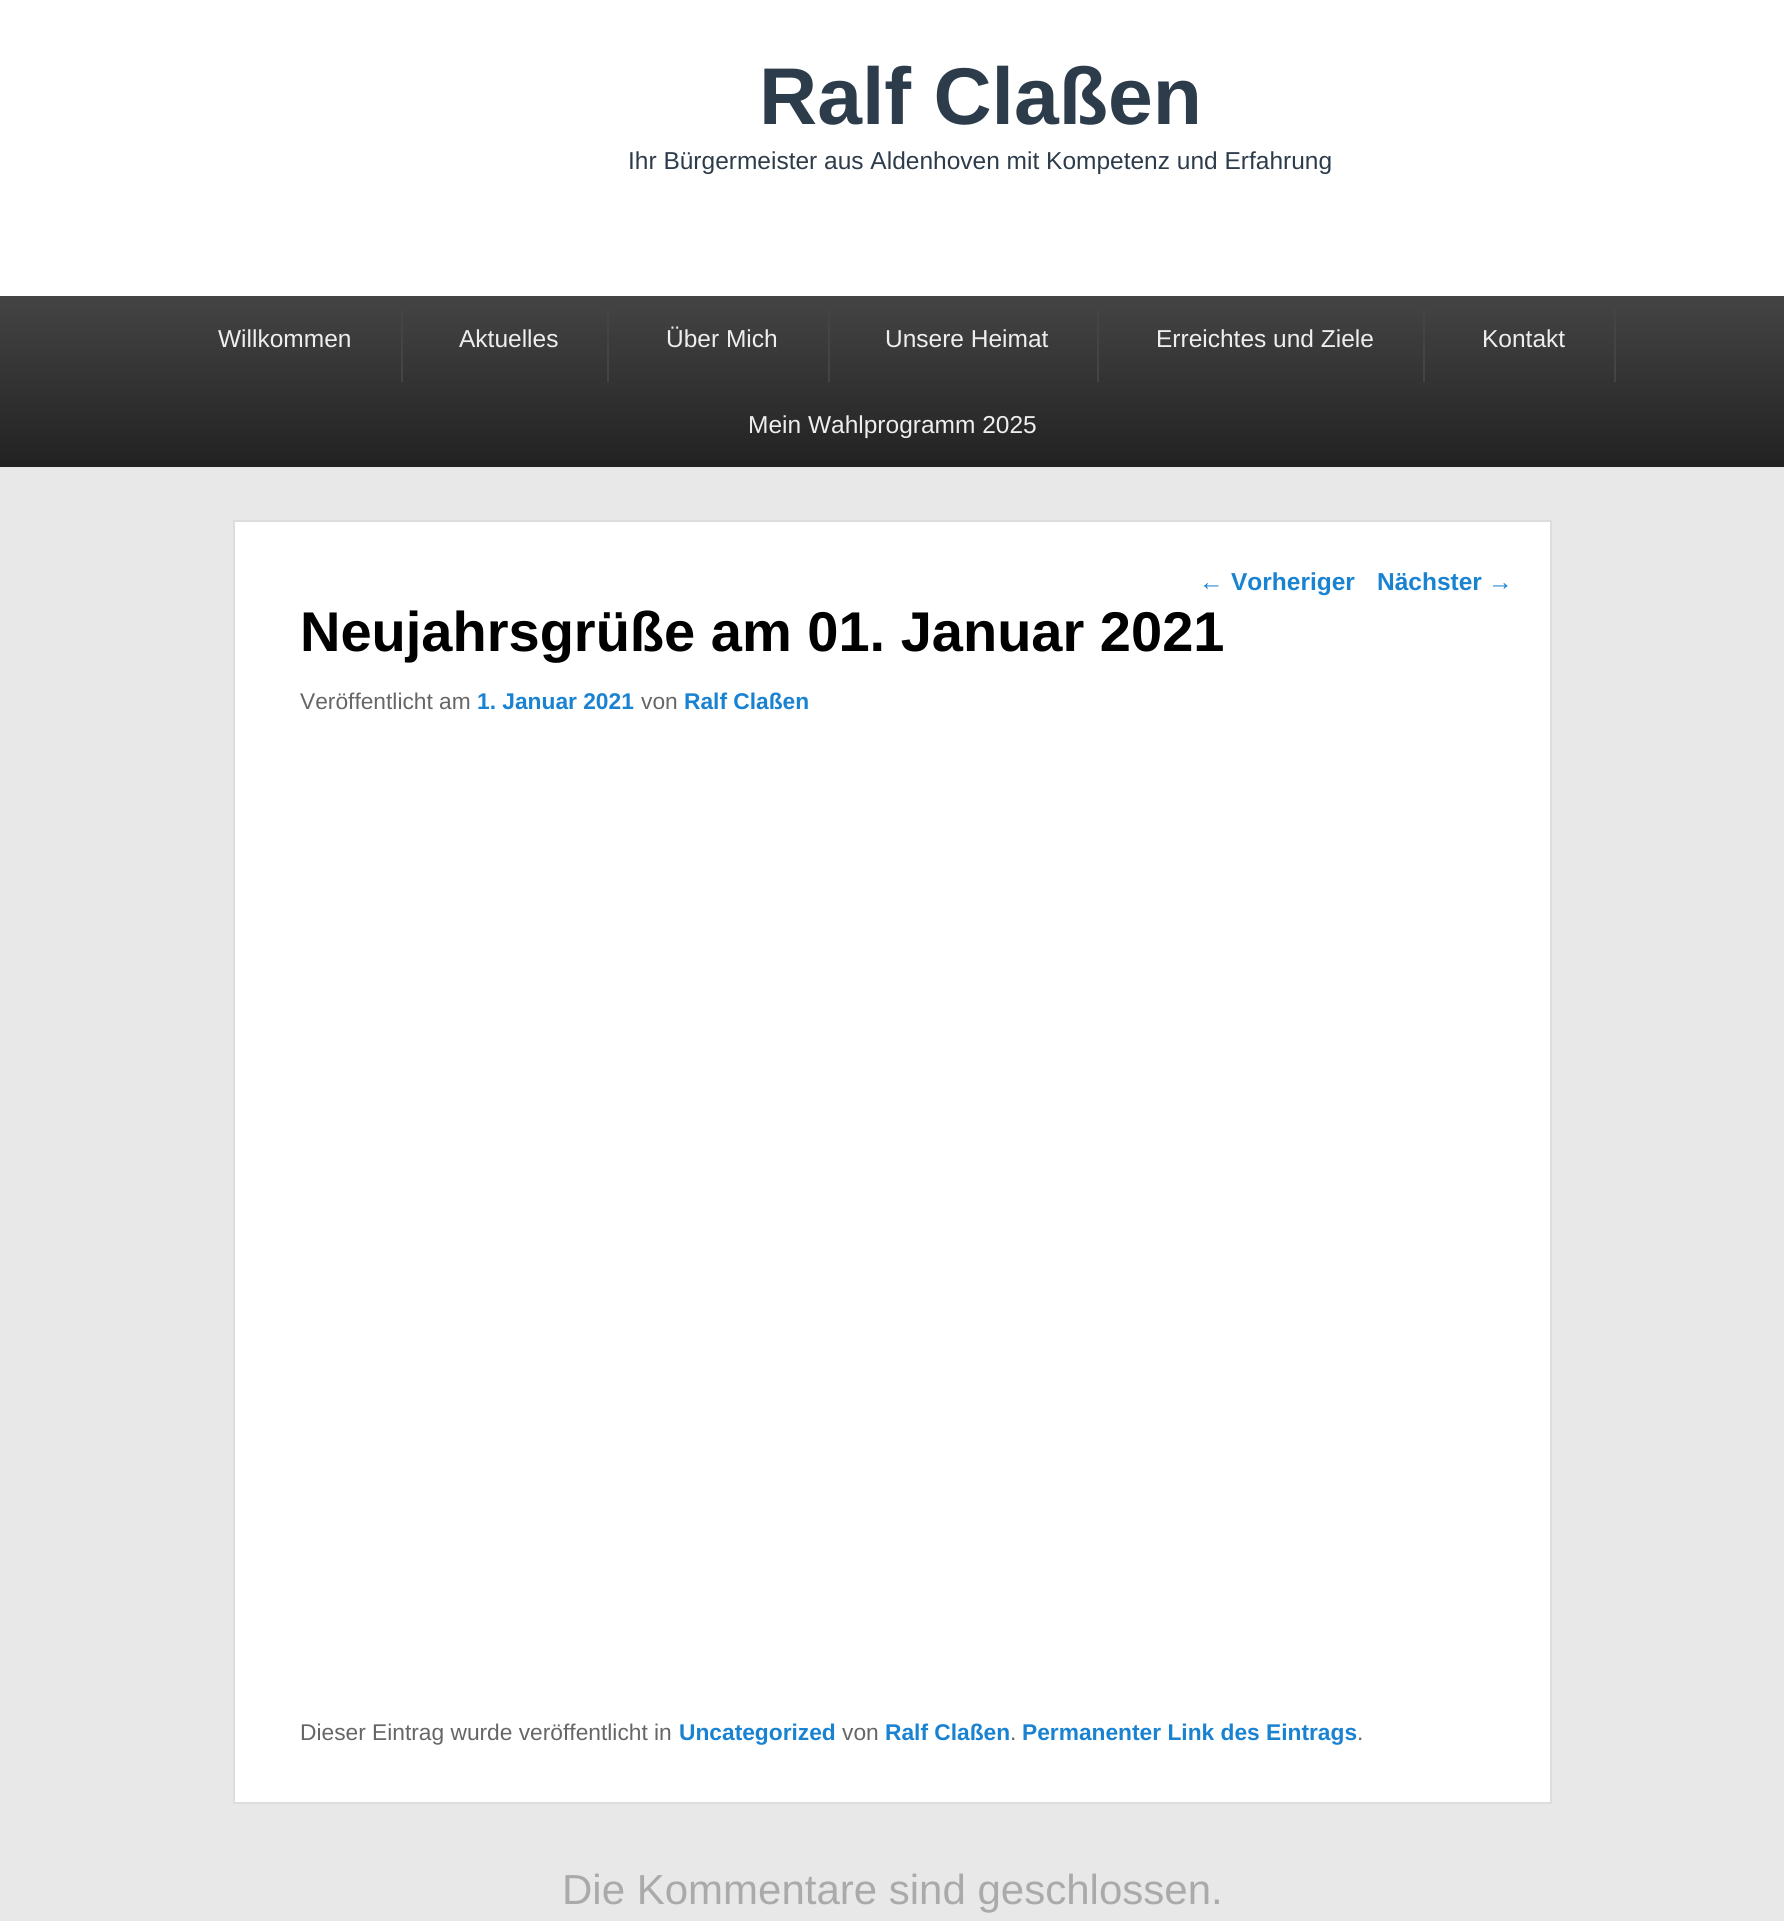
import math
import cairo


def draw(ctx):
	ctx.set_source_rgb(0.91, 0.91, 0.91)
	ctx.paint()
	ctx.set_source_rgb(1, 1, 1)
	ctx.rectangle(0, 0, 1784, 296)
	ctx.fill()
	ctx.select_font_face('Liberation Sans', cairo.FONT_SLANT_NORMAL, cairo.FONT_WEIGHT_BOLD)
	ctx.set_font_size(80.5)
	ctx.set_source_rgb(0.176, 0.235, 0.294)
	ctx.move_to(759, 124)
	ctx.show_text('Ralf Claßen')
	ctx.select_font_face('Liberation Sans')
	ctx.set_font_size(24.5)
	ctx.move_to(628, 169)
	ctx.show_text('Ihr Bürgermeister aus Aldenhoven mit Kompetenz und Erfahrung')
	gradient = cairo.LinearGradient(893, 296, 893, 467)
	gradient.add_color_stop_rgba(0, 0.267, 0.267, 0.267, 1)
	gradient.add_color_stop_rgba(1, 0.133, 0.133, 0.133, 1)
	ctx.set_source(gradient)
	ctx.rectangle(0, 296, 1784, 171)
	ctx.fill()
	ctx.set_source_rgb(0.267, 0.267, 0.267)
	ctx.rectangle(401, 309, 2, 73)
	ctx.fill()
	ctx.set_source_rgb(0.933, 0.933, 0.933)
	ctx.move_to(218, 347)
	ctx.show_text('Willkommen')
	ctx.set_source_rgb(0.267, 0.267, 0.267)
	ctx.rectangle(607, 309, 2, 73)
	ctx.fill()
	ctx.set_source_rgb(0.933, 0.933, 0.933)
	ctx.move_to(459, 347)
	ctx.show_text('Aktuelles')
	ctx.set_source_rgb(0.267, 0.267, 0.267)
	ctx.rectangle(828, 309, 2, 73)
	ctx.fill()
	ctx.set_source_rgb(0.933, 0.933, 0.933)
	ctx.move_to(666, 347)
	ctx.show_text('Über Mich')
	ctx.set_source_rgb(0.267, 0.267, 0.267)
	ctx.rectangle(1097, 309, 2, 73)
	ctx.fill()
	ctx.set_source_rgb(0.933, 0.933, 0.933)
	ctx.move_to(885, 347)
	ctx.show_text('Unsere Heimat')
	ctx.set_source_rgb(0.267, 0.267, 0.267)
	ctx.rectangle(1423, 309, 2, 73)
	ctx.fill()
	ctx.set_source_rgb(0.933, 0.933, 0.933)
	ctx.move_to(1156, 347)
	ctx.show_text('Erreichtes und Ziele')
	ctx.set_source_rgb(0.267, 0.267, 0.267)
	ctx.rectangle(1614, 309, 2, 73)
	ctx.fill()
	ctx.set_source_rgb(0.933, 0.933, 0.933)
	ctx.move_to(1482, 347)
	ctx.show_text('Kontakt')
	ctx.move_to(748, 433)
	ctx.show_text('Mein Wahlprogramm 2025')
	ctx.set_source_rgb(1, 1, 1)
	ctx.rectangle(234, 521, 1317, 1282)
	ctx.fill_preserve()
	ctx.set_source_rgb(0.867, 0.867, 0.867)
	ctx.stroke()
	ctx.set_source_rgb(0.098, 0.51, 0.82)
	ctx.move_to(1199, 590)
	ctx.show_text('←')
	ctx.select_font_face('Liberation Sans', cairo.FONT_SLANT_NORMAL, cairo.FONT_WEIGHT_BOLD)
	ctx.move_to(1231, 590)
	ctx.show_text('Vorheriger')
	ctx.move_to(1377, 590)
	ctx.show_text('Nächster')
	ctx.select_font_face('Liberation Sans')
	ctx.move_to(1488, 590)
	ctx.show_text('→')
	ctx.select_font_face('Liberation Sans', cairo.FONT_SLANT_NORMAL, cairo.FONT_WEIGHT_BOLD)
	ctx.set_font_size(56)
	ctx.set_source_rgb(0, 0, 0)
	ctx.move_to(300, 651)
	ctx.show_text('Neujahrsgrüße am 01. Januar 2021')
	ctx.select_font_face('Liberation Sans')
	ctx.set_font_size(22.75)
	ctx.set_source_rgb(0.4, 0.4, 0.4)
	ctx.move_to(300, 709)
	ctx.show_text('Veröffentlicht am')
	ctx.select_font_face('Liberation Sans', cairo.FONT_SLANT_NORMAL, cairo.FONT_WEIGHT_BOLD)
	ctx.set_source_rgb(0.098, 0.51, 0.82)
	ctx.move_to(477, 709)
	ctx.show_text('1. Januar 2021')
	ctx.select_font_face('Liberation Sans')
	ctx.set_source_rgb(0.4, 0.4, 0.4)
	ctx.move_to(641, 709)
	ctx.show_text('von')
	ctx.select_font_face('Liberation Sans', cairo.FONT_SLANT_NORMAL, cairo.FONT_WEIGHT_BOLD)
	ctx.set_source_rgb(0.098, 0.51, 0.82)
	ctx.move_to(684, 709)
	ctx.show_text('Ralf Claßen')
	ctx.select_font_face('Liberation Sans')
	ctx.set_source_rgb(0.4, 0.4, 0.4)
	ctx.move_to(300, 1740)
	ctx.show_text('Dieser Eintrag wurde veröffentlicht in')
	ctx.select_font_face('Liberation Sans', cairo.FONT_SLANT_NORMAL, cairo.FONT_WEIGHT_BOLD)
	ctx.set_source_rgb(0.098, 0.51, 0.82)
	ctx.move_to(679, 1740)
	ctx.show_text('Uncategorized')
	ctx.select_font_face('Liberation Sans')
	ctx.set_source_rgb(0.4, 0.4, 0.4)
	ctx.move_to(842, 1740)
	ctx.show_text('von')
	ctx.select_font_face('Liberation Sans', cairo.FONT_SLANT_NORMAL, cairo.FONT_WEIGHT_BOLD)
	ctx.set_source_rgb(0.098, 0.51, 0.82)
	ctx.move_to(885, 1740)
	ctx.show_text('Ralf Claßen')
	ctx.select_font_face('Liberation Sans')
	ctx.set_source_rgb(0.4, 0.4, 0.4)
	ctx.move_to(1010, 1740)
	ctx.show_text('.')
	ctx.select_font_face('Liberation Sans', cairo.FONT_SLANT_NORMAL, cairo.FONT_WEIGHT_BOLD)
	ctx.set_source_rgb(0.098, 0.51, 0.82)
	ctx.move_to(1022, 1740)
	ctx.show_text('Permanenter Link des Eintrags')
	ctx.select_font_face('Liberation Sans')
	ctx.set_source_rgb(0.4, 0.4, 0.4)
	ctx.move_to(1357, 1740)
	ctx.show_text('.')
	ctx.set_font_size(42)
	ctx.set_source_rgb(0.667, 0.667, 0.667)
	ctx.move_to(562, 1904)
	ctx.show_text('Die Kommentare sind geschlossen.')


surface = cairo.ImageSurface(cairo.FORMAT_RGB24, 1784, 1921)
ctx = cairo.Context(surface)
options = cairo.FontOptions()
options.set_hint_metrics(cairo.HINT_METRICS_OFF)
options.set_hint_style(cairo.HINT_STYLE_NONE)
ctx.set_font_options(options)
ctx.set_miter_limit(4)
draw(ctx)
surface.write_to_png('image.png')
